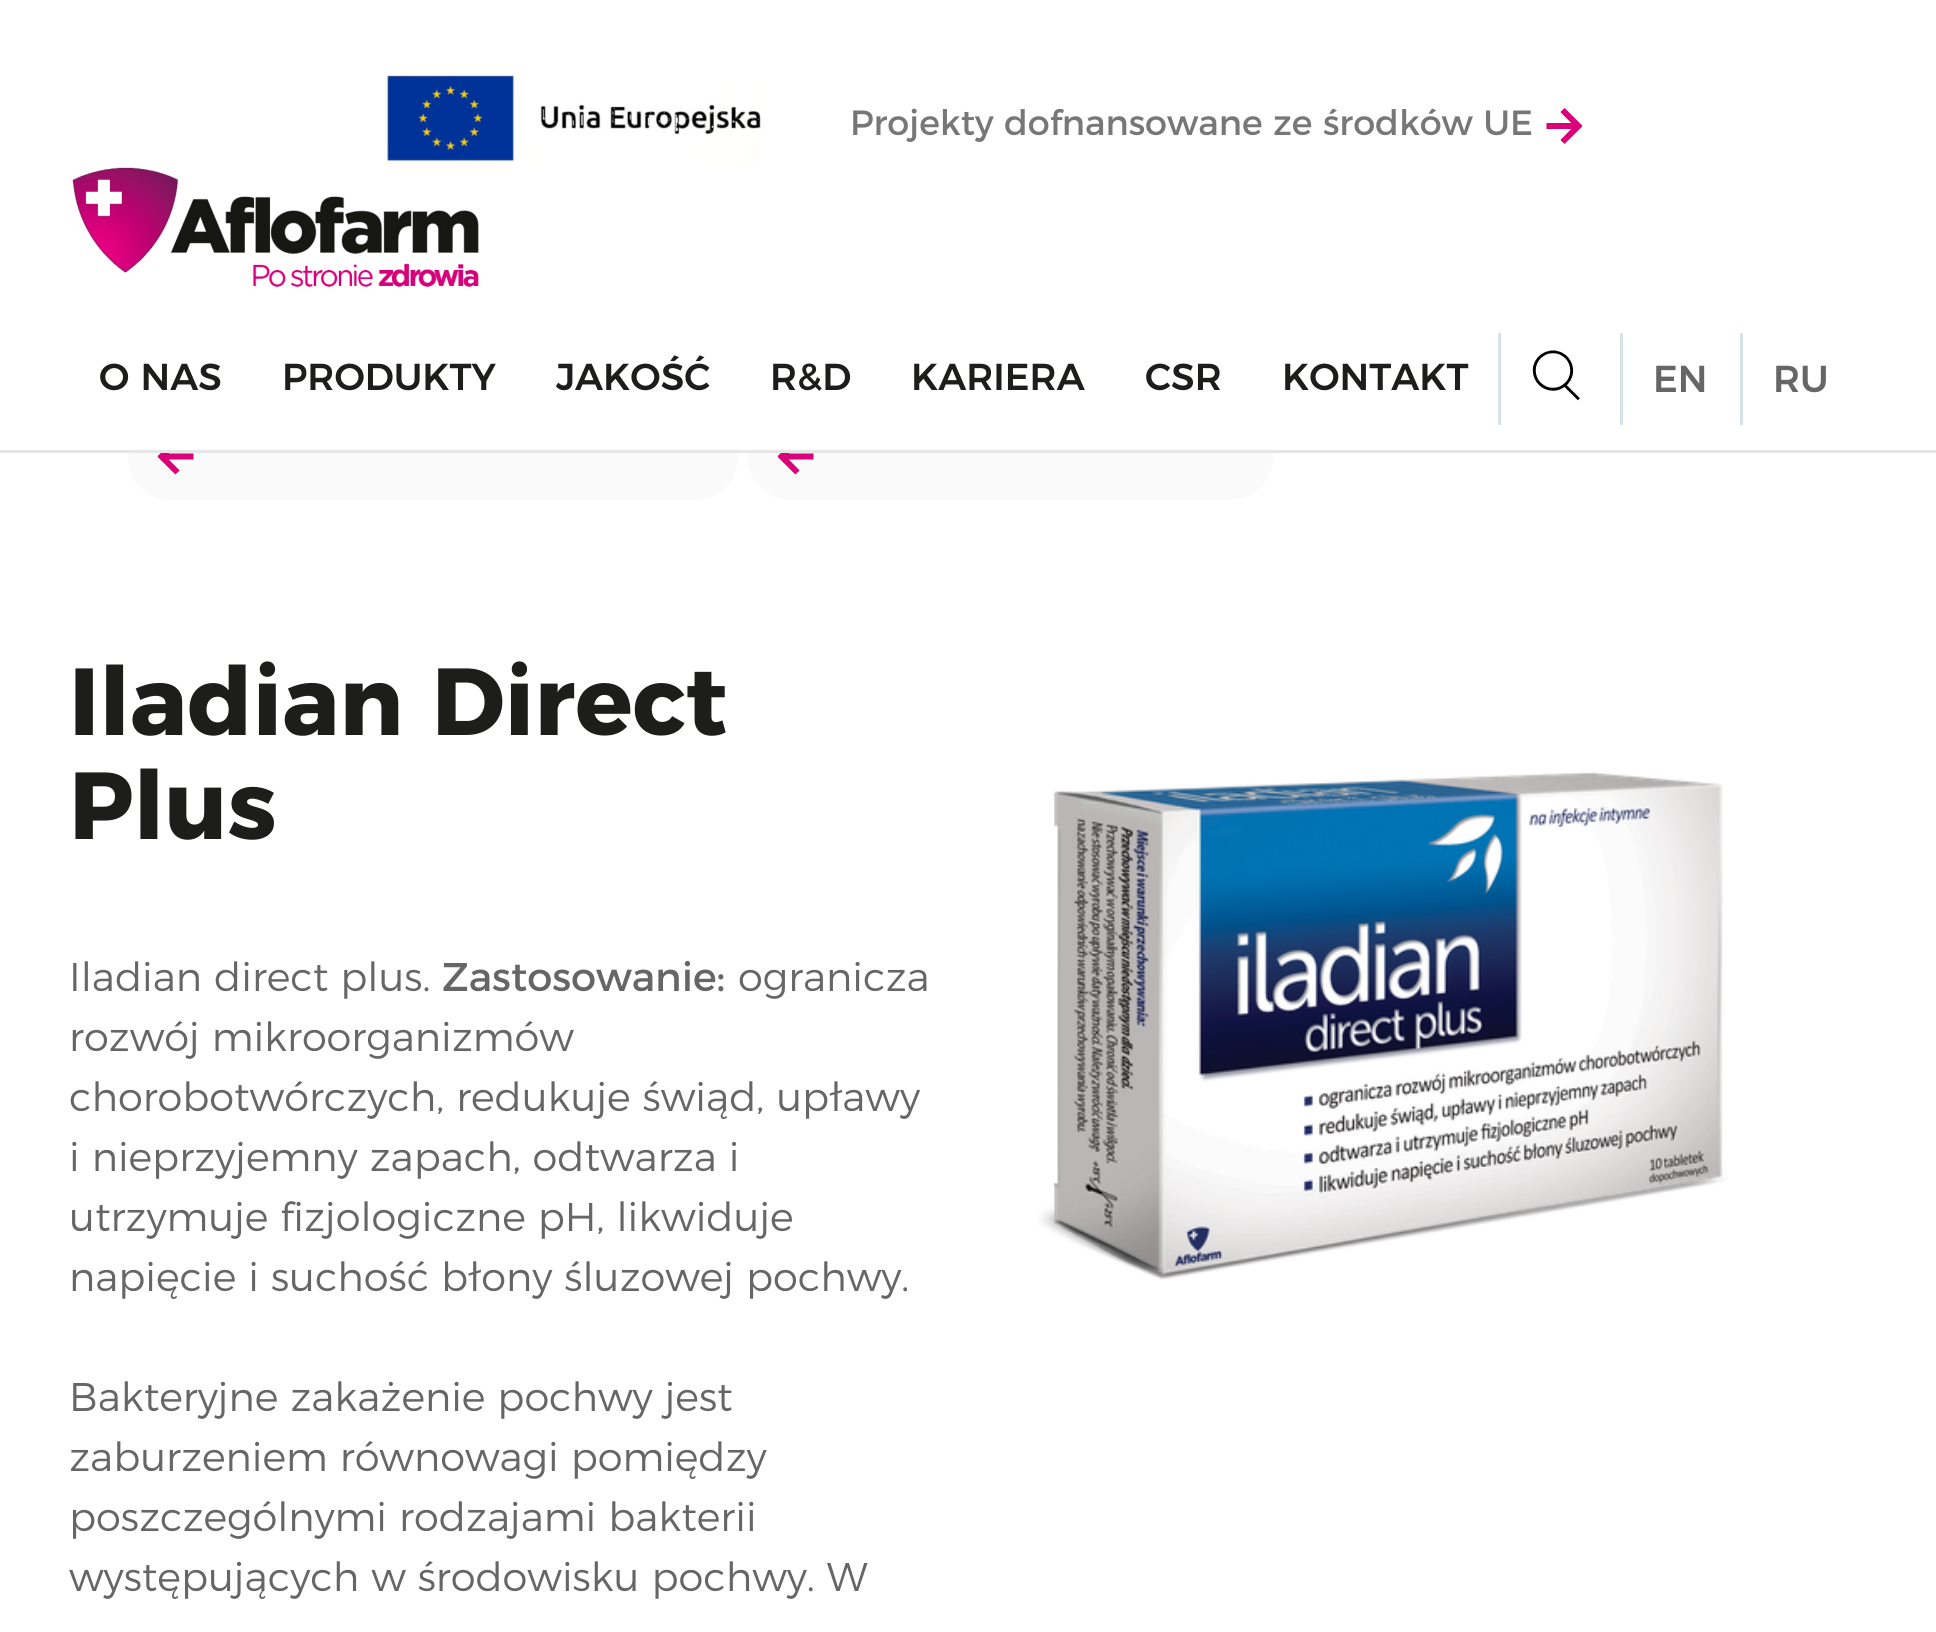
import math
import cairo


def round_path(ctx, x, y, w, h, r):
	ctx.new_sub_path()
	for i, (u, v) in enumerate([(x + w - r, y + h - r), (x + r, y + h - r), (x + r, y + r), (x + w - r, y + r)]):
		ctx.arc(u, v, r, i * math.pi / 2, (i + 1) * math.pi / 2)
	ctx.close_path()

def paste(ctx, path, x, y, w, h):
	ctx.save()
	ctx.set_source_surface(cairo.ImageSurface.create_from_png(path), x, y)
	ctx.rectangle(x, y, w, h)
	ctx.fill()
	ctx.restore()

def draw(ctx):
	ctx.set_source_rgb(1, 1, 1)
	ctx.paint()
	ctx.set_source_rgb(0.98, 0.98, 0.98)
	round_path(ctx, 128, 415, 610, 85, 42.5)
	ctx.fill()
	round_path(ctx, 748, 415, 525, 85, 42.5)
	ctx.fill()
	ctx.set_source_rgb(1, 1, 1)
	ctx.rectangle(129, 415, 1143, 35)
	ctx.fill()
	ctx.set_source_rgb(0.902, 0.902, 0.902)
	ctx.rectangle(0, 450, 1936, 3)
	ctx.fill()
	paste(ctx, 'media/1.png', 383, 70, 378, 95)
	ctx.select_font_face('Montserrat')
	ctx.set_font_size(35)
	ctx.set_source_rgb(0.467, 0.467, 0.467)
	ctx.move_to(850, 135)
	ctx.show_text('Projekty dofnansowane ze środków UE')
	paste(ctx, 'media/2.png', 1546, 108, 37, 36)
	paste(ctx, 'media/3.png', 72, 167, 407, 120)
	ctx.select_font_face('Montserrat Medium')
	ctx.set_font_size(37.5)
	ctx.set_source_rgb(0.114, 0.114, 0.106)
	for x, y, s in [
		(99, 390, 'O NAS'),
		(282, 390, 'PRODUKTY'),
		(556, 390, 'JAKOŚĆ'),
		(770, 390, 'R&D'),
		(911, 390, 'KARIERA'),
		(1145, 390, 'CSR'),
		(1282, 390, 'KONTAKT'),
	]:
		ctx.move_to(x, y)
		ctx.show_text(s)
	ctx.set_source_rgb(0.831, 0.89, 0.914)
	ctx.rectangle(1498, 333, 3, 92)
	ctx.fill()
	paste(ctx, 'media/4.png', 1532, 350, 48, 51)
	ctx.rectangle(1620, 333, 3, 92)
	ctx.fill()
	ctx.set_source_rgb(0.4, 0.4, 0.4)
	ctx.move_to(1653, 392)
	ctx.show_text('EN')
	ctx.set_source_rgb(0.831, 0.89, 0.914)
	ctx.rectangle(1740, 333, 3, 92)
	ctx.fill()
	ctx.set_source_rgb(0.4, 0.4, 0.4)
	ctx.move_to(1773, 392)
	ctx.show_text('RU')
	paste(ctx, 'media/5.png', 157, 453, 37, 22)
	paste(ctx, 'media/5.png', 777, 453, 37, 22)
	ctx.select_font_face('Montserrat', cairo.FONT_SLANT_NORMAL, cairo.FONT_WEIGHT_BOLD)
	ctx.set_font_size(95)
	ctx.set_source_rgb(0.114, 0.114, 0.106)
	ctx.move_to(69, 735)
	ctx.show_text('Iladian Direct')
	ctx.move_to(69, 839)
	ctx.show_text('Plus')
	ctx.select_font_face('Montserrat Light')
	ctx.set_font_size(40)
	ctx.set_source_rgb(0.4, 0.4, 0.4)
	ctx.move_to(69, 991)
	ctx.show_text('Iladian direct plus.')
	ctx.select_font_face('Montserrat')
	ctx.move_to(442, 991)
	ctx.show_text('Zastosowanie:')
	ctx.select_font_face('Montserrat Light')
	for x, y, s in [
		(738, 991, 'ogranicza'),
		(69, 1051, 'rozwój mikroorganizmów'),
		(69, 1111, 'chorobotwórczych, redukuje świąd, upławy'),
		(69, 1171, 'i nieprzyjemny zapach, odtwarza i'),
		(69, 1231, 'utrzymuje fizjologiczne pH, likwiduje'),
		(69, 1291, 'napięcie i suchość błony śluzowej pochwy.'),
		(69, 1411, 'Bakteryjne zakażenie pochwy jest'),
		(69, 1471, 'zaburzeniem równowagi pomiędzy'),
		(69, 1531, 'poszczególnymi rodzajami bakterii'),
		(69, 1591, 'występujących w środowisku pochwy. W'),
	]:
		ctx.move_to(x, y)
		ctx.show_text(s)
	paste(ctx, 'media/6.png', 1038, 771, 689, 509)


surface = cairo.ImageSurface(cairo.FORMAT_RGB24, 1936, 1632)
ctx = cairo.Context(surface)
options = cairo.FontOptions()
options.set_hint_metrics(cairo.HINT_METRICS_OFF)
options.set_hint_style(cairo.HINT_STYLE_NONE)
ctx.set_font_options(options)
ctx.set_miter_limit(4)
draw(ctx)
surface.write_to_png('image.png')
